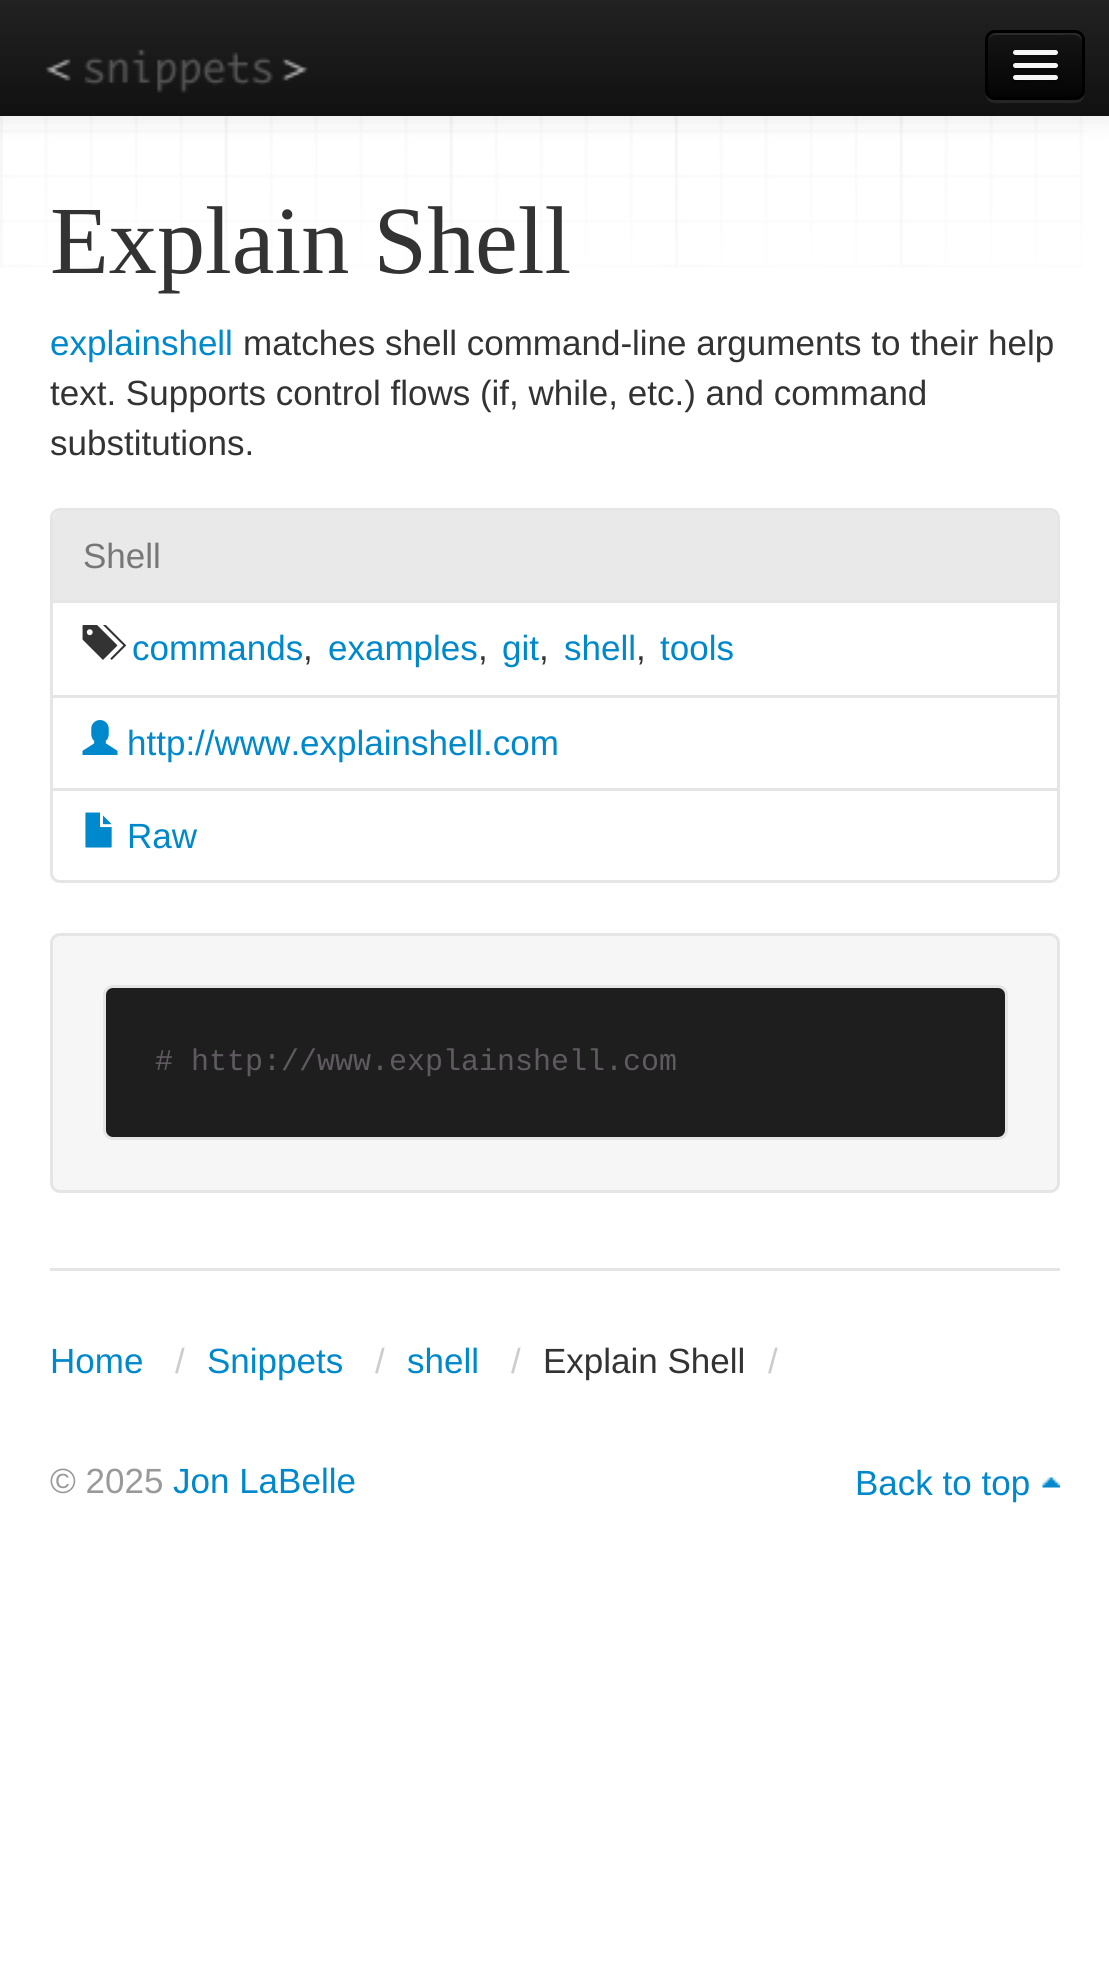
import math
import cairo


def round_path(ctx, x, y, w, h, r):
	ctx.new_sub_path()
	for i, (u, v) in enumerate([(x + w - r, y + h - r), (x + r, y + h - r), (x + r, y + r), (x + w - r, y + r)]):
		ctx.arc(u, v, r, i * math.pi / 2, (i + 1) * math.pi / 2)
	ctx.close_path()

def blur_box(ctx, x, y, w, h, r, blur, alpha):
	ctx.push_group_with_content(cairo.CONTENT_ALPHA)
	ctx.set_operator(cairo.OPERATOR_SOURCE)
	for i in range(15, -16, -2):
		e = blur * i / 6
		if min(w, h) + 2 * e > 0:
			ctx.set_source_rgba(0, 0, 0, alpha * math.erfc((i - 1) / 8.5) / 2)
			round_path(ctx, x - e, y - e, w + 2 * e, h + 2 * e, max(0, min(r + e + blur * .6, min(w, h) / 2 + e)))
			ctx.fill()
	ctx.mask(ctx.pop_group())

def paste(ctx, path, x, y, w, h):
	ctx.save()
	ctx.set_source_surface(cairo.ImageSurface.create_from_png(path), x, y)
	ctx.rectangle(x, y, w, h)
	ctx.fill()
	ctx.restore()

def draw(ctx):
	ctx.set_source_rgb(1, 1, 1)
	ctx.paint()
	paste(ctx, 'media/1.png', 0, 116, 1083, 152)
	ctx.set_source_rgb(0, 0, 0)
	blur_box(ctx, 0, 3, 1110, 115, 0, 12.5, 0.1)
	gradient = cairo.LinearGradient(555, 0, 555, 113)
	gradient.add_color_stop_rgba(0, 0.133, 0.133, 0.133, 1)
	gradient.add_color_stop_rgba(1, 0.067, 0.067, 0.067, 1)
	ctx.set_source(gradient)
	ctx.rectangle(0, 0, 1109, 113)
	ctx.fill()
	ctx.set_source_rgb(0.067, 0.067, 0.067)
	ctx.rectangle(0, 113, 1109, 3)
	ctx.fill()
	paste(ctx, 'media/2.png', 45, 49, 263, 44)
	ctx.set_source_rgb(0.145, 0.145, 0.145)
	ctx.new_path()
	ctx.move_to(985, 90)
	ctx.curve_to(985, 106, 996, 103, 1008, 103)
	ctx.line_to(1062, 103)
	ctx.curve_to(1074, 103, 1085, 106, 1085, 90)
	ctx.curve_to(1085, 96, 1081, 100, 1075, 100)
	ctx.line_to(995, 100)
	ctx.curve_to(989, 100, 985, 96, 985, 90)
	ctx.close_path()
	ctx.fill()
	ctx.save()
	round_path(ctx, 985, 30, 100, 70, 10)
	ctx.clip()
	gradient = cairo.LinearGradient(1035, 32, 1035, 98)
	gradient.add_color_stop_rgba(0, 0.082, 0.082, 0.082, 1)
	gradient.add_color_stop_rgba(1, 0.016, 0.016, 0.016, 1)
	ctx.set_source(gradient)
	ctx.rectangle(985, 33, 100, 65)
	ctx.fill()
	ctx.restore()
	ctx.set_source_rgba(1, 1, 1, 0.1)
	ctx.new_path()
	ctx.move_to(995, 35)
	ctx.line_to(1062, 35)
	ctx.curve_to(1066, 35, 1080, 32, 1082, 41)
	ctx.line_to(1082, 94)
	ctx.curve_to(1084, 91, 1083, 85, 1083, 82)
	ctx.line_to(1083, 66)
	ctx.curve_to(1083, 28, 1088, 33, 1049, 33)
	ctx.line_to(1009, 33)
	ctx.curve_to(1001, 33, 988, 30, 988, 42)
	ctx.curve_to(988, 38, 991, 35, 995, 35)
	ctx.close_path()
	ctx.fill()
	round_path(ctx, 986.5, 31.5, 97, 67, 8.5)
	ctx.set_source_rgb(0, 0, 0)
	ctx.set_line_width(3)
	ctx.stroke()
	ctx.set_source_rgb(0.043, 0.043, 0.043)
	ctx.new_path()
	ctx.move_to(1013, 54)
	ctx.curve_to(1011, 59, 1022, 58, 1022, 58)
	ctx.line_to(1049, 58)
	ctx.curve_to(1050, 58, 1057, 60, 1058, 56)
	ctx.line_to(1057, 54)
	ctx.line_to(1055, 55)
	ctx.curve_to(1052, 55, 1015, 56, 1013, 54)
	ctx.close_path()
	ctx.fill()
	ctx.set_source_rgb(0.961, 0.961, 0.961)
	round_path(ctx, 1013, 50, 45, 5, 2.5)
	ctx.fill()
	ctx.set_source_rgb(0.035, 0.035, 0.035)
	ctx.new_path()
	ctx.move_to(1013, 67)
	ctx.curve_to(1011, 72, 1021, 70, 1022, 70)
	ctx.line_to(1049, 70)
	ctx.curve_to(1050, 70, 1057, 72, 1058, 68)
	ctx.line_to(1057, 66)
	ctx.line_to(1055, 67)
	ctx.line_to(1015, 67)
	ctx.close_path()
	ctx.fill()
	ctx.set_source_rgb(0.961, 0.961, 0.961)
	round_path(ctx, 1013, 63, 45, 5, 2.5)
	ctx.fill()
	ctx.set_source_rgb(0.024, 0.024, 0.024)
	ctx.new_path()
	ctx.move_to(1013, 79)
	ctx.curve_to(1011, 84, 1022, 83, 1022, 83)
	ctx.line_to(1049, 83)
	ctx.curve_to(1050, 83, 1057, 85, 1058, 81)
	ctx.line_to(1057, 79)
	ctx.line_to(1055, 80)
	ctx.curve_to(1052, 80, 1015, 81, 1013, 79)
	ctx.close_path()
	ctx.fill()
	ctx.set_source_rgb(0.961, 0.961, 0.961)
	round_path(ctx, 1013, 75, 45, 5, 2.5)
	ctx.fill()
	ctx.select_font_face('Liberation Serif')
	ctx.set_font_size(96.25)
	ctx.set_source_rgb(0.2, 0.2, 0.2)
	ctx.move_to(50, 273)
	ctx.show_text('Explain Shell')
	ctx.select_font_face('Liberation Sans')
	ctx.set_font_size(35)
	ctx.set_source_rgb(0, 0.533, 0.8)
	ctx.move_to(50, 355)
	ctx.show_text('explainshell')
	ctx.set_source_rgb(0.2, 0.2, 0.2)
	for x, y, s in [
		(243, 355, 'matches shell command-line arguments to their help'),
		(50, 405, 'text. Supports control flows (if, while, etc.) and command'),
		(50, 455, 'substitutions.'),
	]:
		ctx.move_to(x, y)
		ctx.show_text(s)
	round_path(ctx, 51.5, 509.5, 1007, 372, 8.5)
	ctx.set_source_rgb(0.898, 0.898, 0.898)
	ctx.stroke()
	ctx.set_source_rgb(0.914, 0.914, 0.914)
	ctx.new_path()
	ctx.move_to(63, 510)
	ctx.line_to(1048, 510)
	ctx.curve_to(1053.5, 510, 1058, 514.5, 1058, 520)
	ctx.line_to(1058, 600)
	ctx.line_to(53, 600)
	ctx.line_to(53, 520)
	ctx.curve_to(53, 514.5, 57.5, 510, 63, 510)
	ctx.close_path()
	ctx.fill()
	ctx.set_source_rgb(0.467, 0.467, 0.467)
	ctx.move_to(83, 568)
	ctx.show_text('Shell')
	ctx.set_source_rgb(0.898, 0.898, 0.898)
	ctx.rectangle(53, 600, 1005, 3)
	ctx.fill()
	paste(ctx, 'media/3.png', 82, 625, 45, 35)
	ctx.set_source_rgb(0, 0.533, 0.8)
	ctx.move_to(132, 660)
	ctx.show_text('commands')
	ctx.set_source_rgb(0.2, 0.2, 0.2)
	ctx.move_to(303, 660)
	ctx.show_text(',')
	ctx.set_source_rgb(0, 0.533, 0.8)
	ctx.move_to(328, 660)
	ctx.show_text('examples')
	ctx.set_source_rgb(0.2, 0.2, 0.2)
	ctx.move_to(478, 660)
	ctx.show_text(',')
	ctx.set_source_rgb(0, 0.533, 0.8)
	ctx.move_to(502, 660)
	ctx.show_text('git')
	ctx.set_source_rgb(0.2, 0.2, 0.2)
	ctx.move_to(539, 660)
	ctx.show_text(',')
	ctx.set_source_rgb(0, 0.533, 0.8)
	ctx.move_to(564, 660)
	ctx.show_text('shell')
	ctx.set_source_rgb(0.2, 0.2, 0.2)
	ctx.move_to(636, 660)
	ctx.show_text(',')
	ctx.set_source_rgb(0, 0.533, 0.8)
	ctx.move_to(660, 660)
	ctx.show_text('tools')
	ctx.set_source_rgb(0.898, 0.898, 0.898)
	ctx.rectangle(53, 695, 1005, 3)
	ctx.fill()
	paste(ctx, 'media/4.png', 82, 720, 36, 35)
	ctx.set_source_rgb(0, 0.533, 0.8)
	ctx.move_to(127, 755)
	ctx.show_text('http://www.explainshell.com')
	ctx.set_source_rgb(0.898, 0.898, 0.898)
	ctx.rectangle(53, 788, 1005, 3)
	ctx.fill()
	paste(ctx, 'media/5.png', 85, 812, 27, 36)
	ctx.set_source_rgb(0, 0.533, 0.8)
	ctx.move_to(127, 848)
	ctx.show_text('Raw')
	ctx.set_source_rgb(0.961, 0.961, 0.961)
	round_path(ctx, 51.5, 934.5, 1007, 257, 8.5)
	ctx.fill_preserve()
	ctx.set_source_rgb(0.898, 0.898, 0.898)
	ctx.stroke()
	ctx.set_source_rgb(0.118, 0.118, 0.118)
	round_path(ctx, 104.5, 986.5, 902, 152, 8.5)
	ctx.fill_preserve()
	ctx.set_source_rgb(0.898, 0.898, 0.898)
	ctx.stroke()
	ctx.select_font_face('Liberation Mono')
	ctx.set_font_size(30)
	ctx.set_source_rgb(0.373, 0.353, 0.376)
	ctx.move_to(155, 1070)
	ctx.show_text('# http://www.explainshell.com')
	ctx.set_source_rgb(0.898, 0.898, 0.898)
	ctx.rectangle(50, 1268, 1010, 3)
	ctx.fill()
	ctx.select_font_face('Liberation Sans')
	ctx.set_font_size(35)
	ctx.set_source_rgb(0, 0.533, 0.8)
	ctx.move_to(50, 1373)
	ctx.show_text('Home')
	ctx.set_source_rgb(0.8, 0.8, 0.8)
	ctx.move_to(175, 1373)
	ctx.show_text('/')
	ctx.set_source_rgb(0, 0.533, 0.8)
	ctx.move_to(207, 1373)
	ctx.show_text('Snippets')
	ctx.set_source_rgb(0.8, 0.8, 0.8)
	ctx.move_to(375, 1373)
	ctx.show_text('/')
	ctx.set_source_rgb(0, 0.533, 0.8)
	ctx.move_to(407, 1373)
	ctx.show_text('shell')
	ctx.set_source_rgb(0.8, 0.8, 0.8)
	ctx.move_to(511, 1373)
	ctx.show_text('/')
	ctx.set_source_rgb(0.2, 0.2, 0.2)
	ctx.move_to(543, 1373)
	ctx.show_text('Explain Shell')
	ctx.set_source_rgb(0.8, 0.8, 0.8)
	ctx.move_to(768, 1373)
	ctx.show_text('/')
	ctx.set_source_rgb(0.6, 0.6, 0.6)
	ctx.move_to(50, 1493)
	ctx.show_text('© 2025')
	ctx.set_source_rgb(0, 0.533, 0.8)
	ctx.move_to(173, 1493)
	ctx.show_text('Jon LaBelle')
	ctx.move_to(855, 1495)
	ctx.show_text('Back to top')
	paste(ctx, 'media/6.png', 1042, 1477, 18, 11)


surface = cairo.ImageSurface(cairo.FORMAT_RGB24, 1109, 1971)
ctx = cairo.Context(surface)
options = cairo.FontOptions()
options.set_hint_metrics(cairo.HINT_METRICS_OFF)
options.set_hint_style(cairo.HINT_STYLE_NONE)
ctx.set_font_options(options)
ctx.set_miter_limit(4)
draw(ctx)
surface.write_to_png('image.png')
